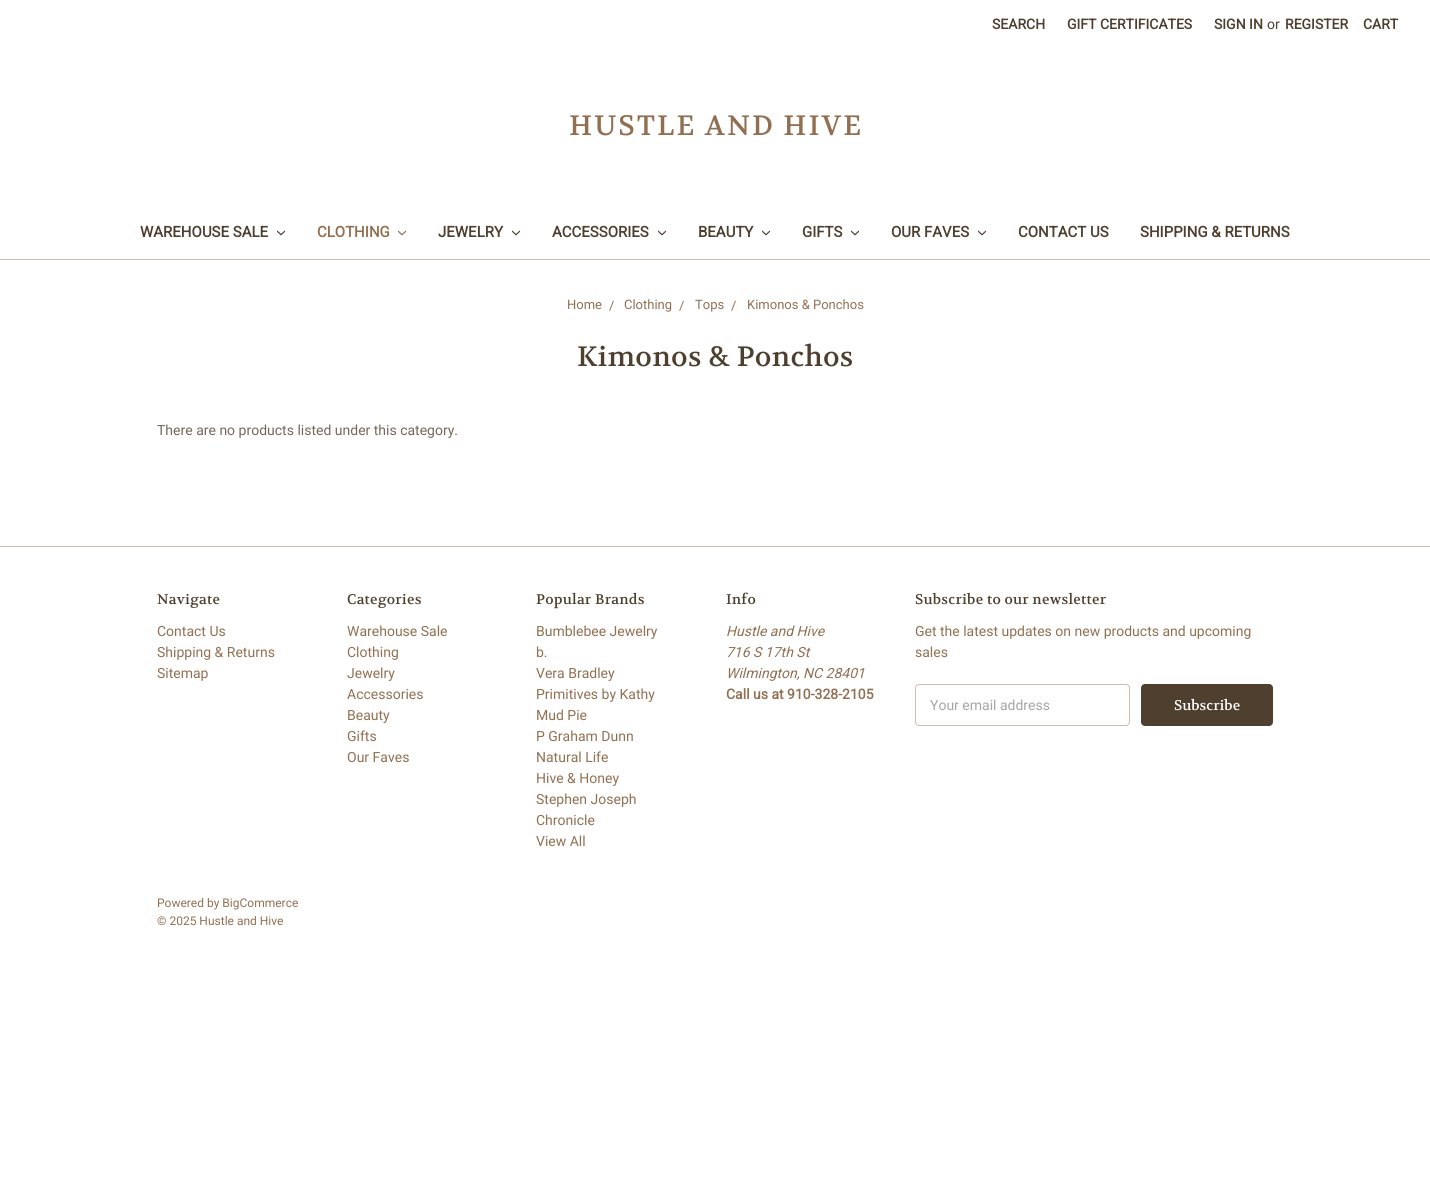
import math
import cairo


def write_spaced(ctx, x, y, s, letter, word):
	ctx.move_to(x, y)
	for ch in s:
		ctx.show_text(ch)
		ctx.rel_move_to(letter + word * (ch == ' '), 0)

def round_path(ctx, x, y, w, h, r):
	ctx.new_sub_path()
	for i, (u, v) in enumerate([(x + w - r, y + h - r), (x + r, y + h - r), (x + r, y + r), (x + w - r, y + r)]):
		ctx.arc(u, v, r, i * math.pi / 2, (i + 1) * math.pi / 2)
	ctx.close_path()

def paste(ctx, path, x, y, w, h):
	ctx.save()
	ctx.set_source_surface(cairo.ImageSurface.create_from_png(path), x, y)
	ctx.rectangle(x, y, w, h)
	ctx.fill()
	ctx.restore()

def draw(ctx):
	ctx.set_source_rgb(1, 1, 1)
	ctx.paint()
	ctx.set_source_rgb(0.8, 0.741, 0.682)
	ctx.rectangle(0, 259, 1430, 1)
	ctx.fill()
	ctx.select_font_face('Roboto', cairo.FONT_SLANT_NORMAL, cairo.FONT_WEIGHT_BOLD)
	ctx.set_font_size(14)
	ctx.set_source_rgb(0.31, 0.247, 0.184)
	for x, y, s in [
		(992, 29, 'SEARCH'),
		(1067, 29, 'GIFT CERTIFICATES'),
		(1214, 29, 'SIGN IN'),
	]:
		ctx.move_to(x, y)
		ctx.show_text(s)
	ctx.select_font_face('Roboto')
	ctx.move_to(1267, 29)
	ctx.show_text('or')
	ctx.select_font_face('Roboto', cairo.FONT_SLANT_NORMAL, cairo.FONT_WEIGHT_BOLD)
	ctx.move_to(1285, 29)
	ctx.show_text('REGISTER')
	ctx.move_to(1363, 29)
	ctx.show_text('CART')
	ctx.select_font_face('Volkhov')
	ctx.set_font_size(28)
	ctx.set_source_rgb(0.569, 0.439, 0.322)
	write_spaced(ctx, 569, 135, 'HUSTLE AND HIVE', 2, 0)
	ctx.select_font_face('Roboto', cairo.FONT_SLANT_NORMAL, cairo.FONT_WEIGHT_BOLD)
	ctx.set_font_size(15)
	ctx.set_source_rgb(0.31, 0.247, 0.184)
	ctx.move_to(140, 237)
	ctx.show_text('WAREHOUSE SALE')
	paste(ctx, 'media/1.png', 277, 230, 8, 6)
	ctx.set_source_rgb(0.569, 0.439, 0.322)
	ctx.move_to(317, 237)
	ctx.show_text('CLOTHING')
	paste(ctx, 'media/2.png', 398, 230, 8, 6)
	ctx.set_source_rgb(0.31, 0.247, 0.184)
	ctx.move_to(438, 237)
	ctx.show_text('JEWELRY')
	paste(ctx, 'media/1.png', 512, 230, 8, 6)
	ctx.move_to(552, 237)
	ctx.show_text('ACCESSORIES')
	paste(ctx, 'media/1.png', 658, 230, 8, 6)
	ctx.move_to(698, 237)
	ctx.show_text('BEAUTY')
	paste(ctx, 'media/1.png', 762, 230, 8, 6)
	ctx.move_to(802, 237)
	ctx.show_text('GIFTS')
	paste(ctx, 'media/1.png', 851, 230, 8, 6)
	ctx.move_to(891, 237)
	ctx.show_text('OUR FAVES')
	paste(ctx, 'media/1.png', 978, 230, 8, 6)
	ctx.move_to(1018, 237)
	ctx.show_text('CONTACT US')
	ctx.move_to(1140, 237)
	ctx.show_text('SHIPPING & RETURNS')
	ctx.select_font_face('Roboto')
	ctx.set_font_size(13)
	ctx.set_source_rgb(0.569, 0.439, 0.322)
	for x, y, s in [
		(567, 309, 'Home'),
		(609, 310, '/'),
		(624, 309, 'Clothing'),
		(679, 310, '/'),
		(695, 309, 'Tops'),
		(731, 310, '/'),
		(747, 309, 'Kimonos & Ponchos'),
	]:
		ctx.move_to(x, y)
		ctx.show_text(s)
	ctx.select_font_face('Volkhov')
	ctx.set_font_size(28)
	ctx.set_source_rgb(0.31, 0.247, 0.184)
	write_spaced(ctx, 577, 366, 'Kimonos & Ponchos', 0.25, 0)
	ctx.select_font_face('Roboto')
	ctx.set_font_size(14)
	ctx.set_source_rgb(0.455, 0.408, 0.361)
	ctx.move_to(157, 435)
	ctx.show_text('There are no products listed under this category.')
	ctx.set_source_rgb(0.8, 0.741, 0.682)
	ctx.rectangle(0, 546, 1430, 1)
	ctx.fill()
	ctx.select_font_face('Volkhov')
	ctx.set_source_rgb(0.31, 0.247, 0.184)
	write_spaced(ctx, 157, 604, 'Navigate', 0.25, 0)
	ctx.select_font_face('Roboto')
	ctx.set_source_rgb(0.569, 0.439, 0.322)
	for x, y, s in [
		(157, 636, 'Contact Us'),
		(157, 657, 'Shipping & Returns'),
		(157, 678, 'Sitemap'),
	]:
		ctx.move_to(x, y)
		ctx.show_text(s)
	ctx.select_font_face('Volkhov')
	ctx.set_source_rgb(0.31, 0.247, 0.184)
	write_spaced(ctx, 347, 604, 'Categories', 0.25, 0)
	ctx.select_font_face('Roboto')
	ctx.set_source_rgb(0.569, 0.439, 0.322)
	for x, y, s in [
		(347, 636, 'Warehouse Sale'),
		(347, 657, 'Clothing'),
		(347, 678, 'Jewelry'),
		(347, 699, 'Accessories'),
		(347, 720, 'Beauty'),
		(347, 741, 'Gifts'),
		(347, 762, 'Our Faves'),
	]:
		ctx.move_to(x, y)
		ctx.show_text(s)
	ctx.select_font_face('Volkhov')
	ctx.set_source_rgb(0.31, 0.247, 0.184)
	write_spaced(ctx, 536, 604, 'Popular Brands', 0.25, 0)
	ctx.select_font_face('Roboto')
	ctx.set_source_rgb(0.569, 0.439, 0.322)
	for x, y, s in [
		(536, 636, 'Bumblebee Jewelry'),
		(536, 657, 'b.'),
		(536, 678, 'Vera Bradley'),
		(536, 699, 'Primitives by Kathy'),
		(536, 720, 'Mud Pie'),
		(536, 741, 'P Graham Dunn'),
		(536, 762, 'Natural Life'),
		(536, 783, 'Hive & Honey'),
		(536, 804, 'Stephen Joseph'),
		(536, 825, 'Chronicle'),
		(536, 846, 'View All'),
	]:
		ctx.move_to(x, y)
		ctx.show_text(s)
	ctx.select_font_face('Volkhov')
	ctx.set_source_rgb(0.31, 0.247, 0.184)
	write_spaced(ctx, 726, 604, 'Info', 0.25, 0)
	ctx.select_font_face('Roboto', cairo.FONT_SLANT_ITALIC)
	ctx.set_source_rgb(0.569, 0.439, 0.322)
	for x, y, s in [
		(726, 636, 'Hustle and Hive'),
		(726, 657, '716 S 17th St'),
		(726, 678, 'Wilmington, NC 28401'),
	]:
		ctx.move_to(x, y)
		ctx.show_text(s)
	ctx.select_font_face('Roboto', cairo.FONT_SLANT_NORMAL, cairo.FONT_WEIGHT_BOLD)
	ctx.move_to(726, 699)
	ctx.show_text('Call us at 910-328-2105')
	ctx.select_font_face('Volkhov')
	ctx.set_source_rgb(0.31, 0.247, 0.184)
	write_spaced(ctx, 915, 604, 'Subscribe to our newsletter', 0.25, 0)
	ctx.select_font_face('Roboto')
	ctx.set_source_rgb(0.569, 0.439, 0.322)
	ctx.move_to(915, 636)
	ctx.show_text('Get the latest updates on new products and upcoming')
	ctx.move_to(915, 657)
	ctx.show_text('sales')
	round_path(ctx, 915.5, 684.5, 214, 41, 3.5)
	ctx.set_source_rgb(0.8, 0.741, 0.682)
	ctx.set_line_width(1)
	ctx.stroke()
	ctx.set_source_rgb(0.647, 0.647, 0.647)
	ctx.move_to(930, 710)
	ctx.show_text('Your email address')
	ctx.set_source_rgb(0.31, 0.247, 0.184)
	round_path(ctx, 1141.5, 684.5, 131, 41, 3.5)
	ctx.fill_preserve()
	ctx.stroke()
	ctx.select_font_face('Volkhov')
	ctx.set_source_rgb(1, 1, 1)
	ctx.move_to(1174, 710)
	ctx.show_text('Subscribe')
	ctx.select_font_face('Roboto')
	ctx.set_font_size(12)
	ctx.set_source_rgb(0.569, 0.439, 0.322)
	ctx.move_to(157, 907)
	ctx.show_text('Powered by BigCommerce')
	ctx.move_to(157, 925)
	ctx.show_text('© 2025 Hustle and Hive')


surface = cairo.ImageSurface(cairo.FORMAT_RGB24, 1430, 1191)
ctx = cairo.Context(surface)
options = cairo.FontOptions()
options.set_hint_metrics(cairo.HINT_METRICS_OFF)
options.set_hint_style(cairo.HINT_STYLE_NONE)
ctx.set_font_options(options)
ctx.set_miter_limit(4)
draw(ctx)
surface.write_to_png('image.png')
